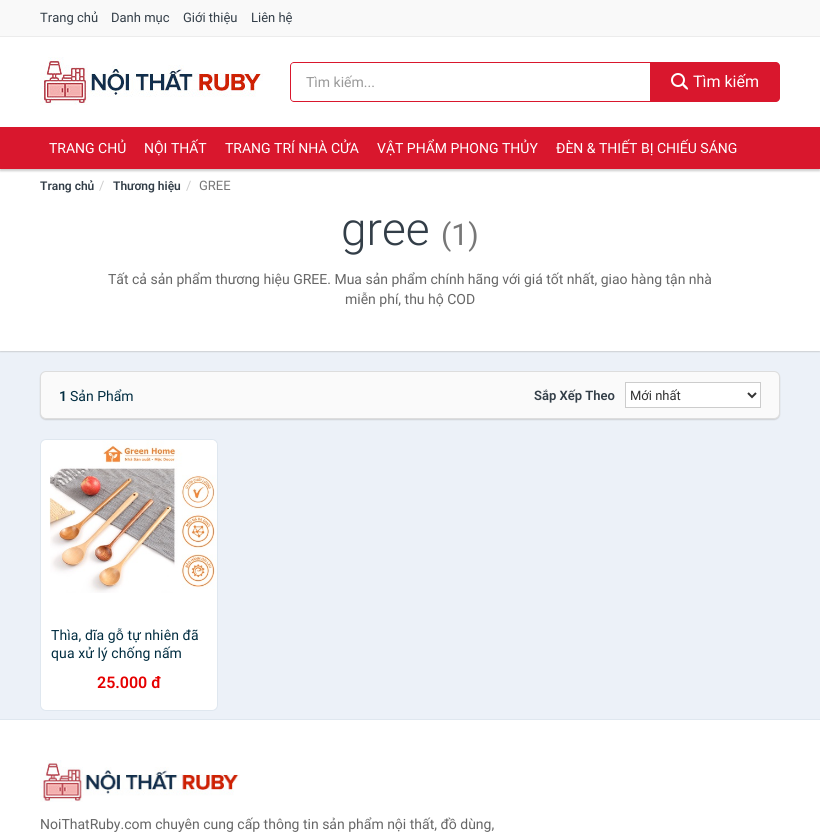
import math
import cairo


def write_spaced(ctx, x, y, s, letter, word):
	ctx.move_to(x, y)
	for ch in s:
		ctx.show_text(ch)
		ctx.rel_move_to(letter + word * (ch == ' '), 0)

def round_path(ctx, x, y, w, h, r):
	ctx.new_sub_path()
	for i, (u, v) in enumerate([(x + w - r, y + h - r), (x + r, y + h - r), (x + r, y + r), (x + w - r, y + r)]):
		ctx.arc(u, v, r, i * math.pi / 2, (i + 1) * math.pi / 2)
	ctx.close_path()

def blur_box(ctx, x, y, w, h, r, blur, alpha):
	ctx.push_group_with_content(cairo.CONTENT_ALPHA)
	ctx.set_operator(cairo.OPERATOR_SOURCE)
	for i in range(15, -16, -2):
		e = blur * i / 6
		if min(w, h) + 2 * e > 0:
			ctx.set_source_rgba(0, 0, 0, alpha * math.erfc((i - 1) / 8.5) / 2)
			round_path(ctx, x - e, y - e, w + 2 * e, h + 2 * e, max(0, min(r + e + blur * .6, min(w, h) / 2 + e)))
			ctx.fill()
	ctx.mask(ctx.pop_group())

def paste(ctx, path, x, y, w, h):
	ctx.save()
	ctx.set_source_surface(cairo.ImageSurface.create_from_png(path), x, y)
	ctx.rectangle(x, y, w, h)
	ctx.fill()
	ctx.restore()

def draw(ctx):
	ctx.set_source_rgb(1, 1, 1)
	ctx.paint()
	ctx.set_source_rgb(0.973, 0.973, 0.973)
	ctx.rectangle(0, 0, 820, 36)
	ctx.fill()
	ctx.set_source_rgb(0.922, 0.922, 0.922)
	ctx.rectangle(0, 36, 820, 1)
	ctx.fill()
	ctx.select_font_face('Roboto')
	ctx.set_font_size(13)
	ctx.set_source_rgb(0.2, 0.243, 0.282)
	for x, y, s in [
		(40, 22, 'Trang chủ'),
		(111, 22, 'Danh mục'),
		(183, 22, 'Giới thiệu'),
		(251, 22, 'Liên hệ'),
	]:
		ctx.move_to(x, y)
		ctx.show_text(s)
	paste(ctx, 'media/1.png', 40, 57, 223, 48)
	ctx.set_source_rgb(0.851, 0.09, 0.176)
	ctx.set_fill_rule(cairo.FILL_RULE_EVEN_ODD)
	ctx.new_path()
	ctx.move_to(294, 62)
	ctx.line_to(651, 62)
	ctx.line_to(651, 102)
	ctx.line_to(294, 102)
	ctx.curve_to(292, 102, 290, 100, 290, 98)
	ctx.line_to(290, 66)
	ctx.curve_to(290, 64, 292, 62, 294, 62)
	ctx.close_path()
	ctx.move_to(294, 63)
	ctx.line_to(651, 63)
	ctx.line_to(651, 101)
	ctx.line_to(294, 101)
	ctx.curve_to(292, 101, 291, 100, 291, 98)
	ctx.line_to(291, 66)
	ctx.curve_to(291, 64, 292, 63, 294, 63)
	ctx.close_path()
	ctx.fill()
	ctx.set_font_size(14)
	ctx.set_source_rgb(0.6, 0.6, 0.6)
	ctx.move_to(306, 87)
	ctx.show_text('Tìm kiếm...')
	ctx.set_source_rgb(0.851, 0.09, 0.176)
	ctx.new_path()
	ctx.move_to(650, 62)
	ctx.line_to(776, 62)
	ctx.curve_to(778, 62, 780, 64, 780, 66)
	ctx.line_to(780, 98)
	ctx.curve_to(780, 100, 778, 102, 776, 102)
	ctx.line_to(650, 102)
	ctx.close_path()
	ctx.fill()
	ctx.arc(678, 80, 6, 0, 2 * math.pi)
	ctx.set_source_rgb(1, 1, 1)
	ctx.stroke()
	ctx.set_fill_rule(cairo.FILL_RULE_WINDING)
	ctx.new_path()
	ctx.move_to(683, 83)
	ctx.curve_to(684, 84, 689, 88, 688, 89.5)
	ctx.curve_to(686.5, 90.5, 682.5, 85.5, 681.5, 84.5)
	ctx.close_path()
	ctx.fill()
	ctx.set_font_size(16)
	ctx.move_to(693, 87)
	ctx.show_text('Tìm kiếm')
	ctx.set_source_rgb(0, 0, 0)
	blur_box(ctx, 0, 129, 820, 42, 0, 1, 0.2)
	ctx.set_source_rgb(0.851, 0.09, 0.176)
	ctx.rectangle(0, 127, 820, 42)
	ctx.fill()
	ctx.set_font_size(14)
	ctx.set_source_rgb(1, 1, 1)
	for x, y, s in [
		(49, 153, 'TRANG CHỦ'),
		(144, 153, 'NỘI THẤT'),
		(225, 153, 'TRANG TRÍ NHÀ CỬA'),
		(377, 153, 'VẬT PHẨM PHONG THỦY'),
		(556, 153, 'ĐÈN & THIẾT BỊ CHIẾU SÁNG'),
	]:
		ctx.move_to(x, y)
		ctx.show_text(s)
	ctx.select_font_face('Roboto SemiBold')
	ctx.set_font_size(12)
	ctx.set_source_rgb(0.2, 0.243, 0.282)
	ctx.move_to(40, 190)
	ctx.show_text('Trang chủ')
	ctx.select_font_face('Roboto')
	ctx.set_font_size(13)
	ctx.set_source_rgb(0.8, 0.8, 0.8)
	ctx.move_to(99, 190)
	ctx.show_text('/')
	ctx.select_font_face('Roboto SemiBold')
	ctx.set_font_size(12)
	ctx.set_source_rgb(0.2, 0.243, 0.282)
	ctx.move_to(113, 190)
	ctx.show_text('Thương hiệu')
	ctx.select_font_face('Roboto')
	ctx.set_font_size(13)
	ctx.set_source_rgb(0.8, 0.8, 0.8)
	ctx.move_to(186, 190)
	ctx.show_text('/')
	ctx.set_source_rgb(0.467, 0.467, 0.467)
	ctx.move_to(199, 190)
	ctx.show_text('GREE')
	ctx.set_source_rgb(0.925, 0.945, 0.969)
	ctx.rectangle(0, 351, 820, 368)
	ctx.fill()
	ctx.set_source_rgb(0.706, 0.706, 0.706)
	blur_box(ctx, 0, 205, 820, 147, 0, 0.5, 0.5)
	ctx.set_source_rgb(1, 1, 1)
	ctx.rectangle(0, 204, 820, 147)
	ctx.fill()
	ctx.select_font_face('Roboto Light')
	ctx.set_font_size(46)
	ctx.set_source_rgb(0.2, 0.243, 0.282)
	ctx.move_to(341, 245)
	ctx.show_text('gree')
	ctx.select_font_face('Roboto')
	ctx.set_font_size(30)
	ctx.set_source_rgb(0.467, 0.467, 0.467)
	ctx.move_to(441, 245)
	ctx.show_text('(1)')
	ctx.set_font_size(14)
	ctx.set_source_rgb(0.4, 0.4, 0.4)
	ctx.move_to(108, 284)
	ctx.show_text('Tất cả sản phẩm thương hiệu GREE. Mua sản phẩm chính hãng với giá tốt nhất, giao hàng tận nhà')
	ctx.move_to(345, 304)
	ctx.show_text('miễn phí, thu hộ COD')
	ctx.set_source_rgb(0.706, 0.706, 0.706)
	blur_box(ctx, 40, 372, 740, 48, 6, 0.5, 0.5)
	ctx.set_source_rgb(0.98, 0.98, 0.98)
	round_path(ctx, 40.5, 371.5, 739, 47, 5.5)
	ctx.fill_preserve()
	ctx.set_source_rgb(0.867, 0.867, 0.867)
	ctx.set_line_width(1)
	ctx.stroke()
	ctx.select_font_face('Roboto SemiBold')
	ctx.set_source_rgb(0.004, 0.176, 0.255)
	ctx.move_to(59, 401)
	ctx.show_text('1')
	ctx.select_font_face('Roboto')
	ctx.move_to(70, 401)
	ctx.show_text('Sản Phẩm')
	ctx.select_font_face('Roboto SemiBold')
	ctx.set_font_size(13)
	ctx.set_source_rgb(0.2, 0.243, 0.282)
	ctx.move_to(534, 400)
	ctx.show_text('Sắp Xếp Theo')
	ctx.set_source_rgb(1, 1, 1)
	ctx.rectangle(625.5, 382.5, 135, 25)
	ctx.fill_preserve()
	ctx.set_source_rgb(0.8, 0.8, 0.8)
	ctx.stroke()
	ctx.new_path()
	ctx.move_to(748, 393)
	ctx.line_to(752, 397)
	ctx.line_to(756, 393)
	ctx.set_source_rgb(0.2, 0.2, 0.2)
	ctx.set_line_width(2)
	ctx.stroke()
	ctx.select_font_face('Roboto')
	ctx.move_to(630, 400)
	ctx.show_text('Mới nhất')
	ctx.set_source_rgb(1, 1, 1)
	round_path(ctx, 40.5, 439.5, 177, 271, 5.5)
	ctx.fill_preserve()
	ctx.set_source_rgb(0.875, 0.906, 0.937)
	ctx.set_line_width(1)
	ctx.stroke()
	paste(ctx, 'media/2.png', 49, 440, 168, 153)
	ctx.set_font_size(14)
	ctx.set_source_rgb(0.004, 0.176, 0.255)
	write_spaced(ctx, 51, 640, 'Thìa, dĩa gỗ tự nhiên đã', 0.1, 0)
	write_spaced(ctx, 51, 658, 'qua xử lý chống nấm', 0.1, 0)
	ctx.select_font_face('Roboto SemiBold')
	ctx.set_font_size(16)
	ctx.set_source_rgb(0.902, 0, 0)
	ctx.move_to(97, 688)
	ctx.show_text('25.000 đ')
	ctx.set_source_rgb(0.875, 0.906, 0.937)
	ctx.rectangle(0, 719, 820, 1)
	ctx.fill()
	paste(ctx, 'media/3.png', 40, 760, 200, 42)
	ctx.select_font_face('Roboto')
	ctx.set_font_size(14)
	ctx.set_source_rgb(0.4, 0.4, 0.4)
	ctx.move_to(40, 829)
	ctx.show_text('NoiThatRuby.com chuyên cung cấp thông tin sản phẩm nội thất, đồ dùng,')


surface = cairo.ImageSurface(cairo.FORMAT_RGB24, 820, 832)
ctx = cairo.Context(surface)
options = cairo.FontOptions()
options.set_hint_metrics(cairo.HINT_METRICS_OFF)
options.set_hint_style(cairo.HINT_STYLE_NONE)
ctx.set_font_options(options)
ctx.set_miter_limit(4)
draw(ctx)
surface.write_to_png('image.png')
